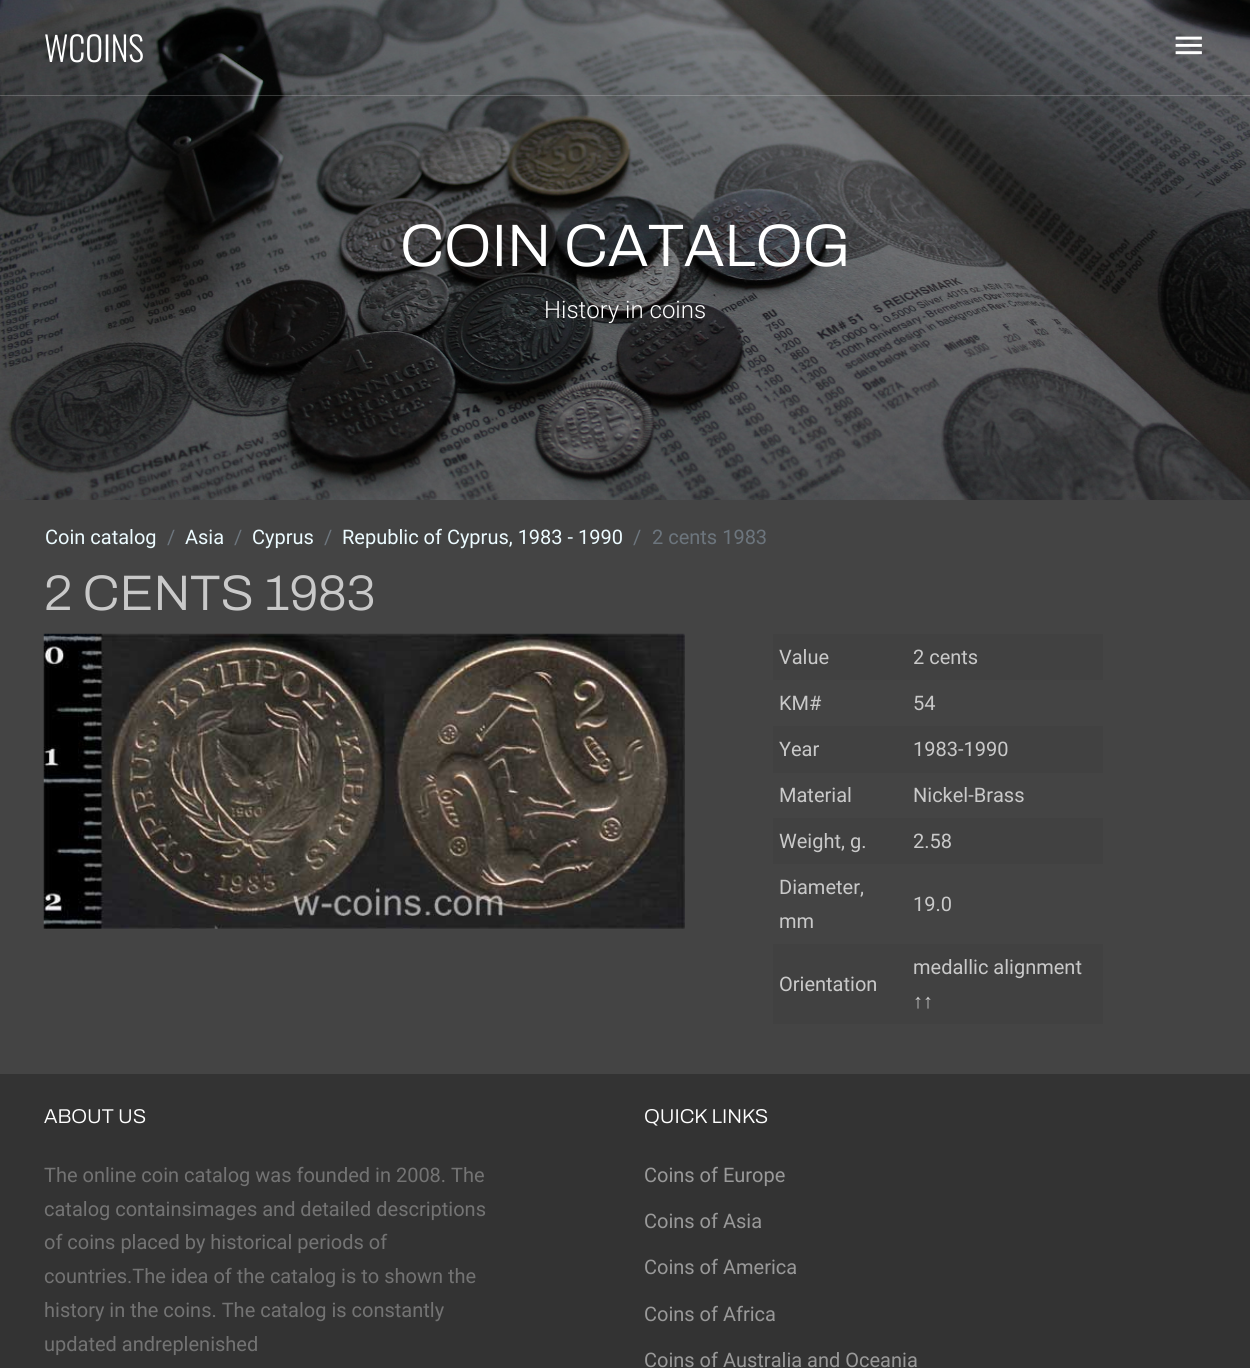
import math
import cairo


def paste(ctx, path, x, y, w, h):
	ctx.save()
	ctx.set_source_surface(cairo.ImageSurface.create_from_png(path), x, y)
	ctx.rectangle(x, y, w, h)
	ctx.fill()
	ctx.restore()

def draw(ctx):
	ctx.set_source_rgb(0.267, 0.267, 0.267)
	ctx.paint()
	paste(ctx, 'media/2.png', 0, 0, 1250, 500)
	ctx.set_source_rgba(1, 1, 1, 0.2)
	ctx.rectangle(0, 95, 1250, 1)
	ctx.fill()
	ctx.select_font_face('Oswald Light')
	ctx.set_font_size(34)
	ctx.set_source_rgb(1, 1, 1)
	ctx.move_to(44, 62)
	ctx.show_text('WCOINS')
	paste(ctx, 'media/1.png', 1175, 36, 27, 19)
	ctx.select_font_face('Archivo Light')
	ctx.set_font_size(60)
	ctx.move_to(400, 266)
	ctx.show_text('COIN CATALOG')
	ctx.select_font_face('Roboto Light')
	ctx.set_font_size(24)
	ctx.move_to(544, 318)
	ctx.show_text('History in coins')
	ctx.select_font_face('Roboto')
	ctx.set_font_size(20)
	ctx.set_source_rgb(0.922, 0.984, 1)
	ctx.move_to(45, 544)
	ctx.show_text('Coin catalog')
	ctx.set_source_rgb(0.424, 0.459, 0.49)
	ctx.move_to(167, 544)
	ctx.show_text('/')
	ctx.set_source_rgb(0.922, 0.984, 1)
	ctx.move_to(185, 544)
	ctx.show_text('Asia')
	ctx.set_source_rgb(0.424, 0.459, 0.49)
	ctx.move_to(234, 544)
	ctx.show_text('/')
	ctx.set_source_rgb(0.922, 0.984, 1)
	ctx.move_to(252, 544)
	ctx.show_text('Cyprus')
	ctx.set_source_rgb(0.424, 0.459, 0.49)
	ctx.move_to(324, 544)
	ctx.show_text('/')
	ctx.set_source_rgb(0.922, 0.984, 1)
	ctx.move_to(342, 544)
	ctx.show_text('Republic of Cyprus, 1983 - 1990')
	ctx.set_source_rgb(0.424, 0.459, 0.49)
	ctx.move_to(633, 544)
	ctx.show_text('/')
	ctx.move_to(652, 544)
	ctx.show_text('2 cents 1983')
	ctx.select_font_face('Archivo Light')
	ctx.set_font_size(50)
	ctx.set_source_rgb(0.788, 0.788, 0.788)
	ctx.move_to(44, 610)
	ctx.show_text('2 CENTS 1983')
	paste(ctx, 'media/3.png', 43, 633, 642, 296)
	ctx.set_source_rgb(0.255, 0.255, 0.255)
	ctx.rectangle(773, 634, 330, 46)
	ctx.fill()
	ctx.select_font_face('Roboto')
	ctx.set_font_size(20)
	ctx.set_source_rgb(0.788, 0.788, 0.788)
	for x, y, s in [
		(779, 664, 'Value'),
		(913, 664, '2 cents'),
		(779, 710, 'KM#'),
		(913, 710, '54'),
	]:
		ctx.move_to(x, y)
		ctx.show_text(s)
	ctx.set_source_rgb(0.255, 0.255, 0.255)
	ctx.rectangle(773, 726, 330, 47)
	ctx.fill()
	ctx.set_source_rgb(0.788, 0.788, 0.788)
	for x, y, s in [
		(779, 756, 'Year'),
		(913, 756, '1983-1990'),
		(779, 802, 'Material'),
		(913, 802, 'Nickel-Brass'),
	]:
		ctx.move_to(x, y)
		ctx.show_text(s)
	ctx.set_source_rgb(0.255, 0.255, 0.255)
	ctx.rectangle(773, 818, 330, 46)
	ctx.fill()
	ctx.set_source_rgb(0.788, 0.788, 0.788)
	for x, y, s in [
		(779, 848, 'Weight, g.'),
		(913, 848, '2.58'),
		(779, 894, 'Diameter,'),
		(779, 928, 'mm'),
		(913, 911, '19.0'),
	]:
		ctx.move_to(x, y)
		ctx.show_text(s)
	ctx.set_source_rgb(0.255, 0.255, 0.255)
	ctx.rectangle(773, 944, 330, 80)
	ctx.fill()
	ctx.set_source_rgb(0.788, 0.788, 0.788)
	ctx.move_to(779, 991)
	ctx.show_text('Orientation')
	ctx.move_to(913, 974)
	ctx.show_text('medallic alignment')
	ctx.select_font_face('Liberation Serif')
	ctx.move_to(913, 1008)
	ctx.show_text('↑↑')
	ctx.set_source_rgb(0.2, 0.2, 0.2)
	ctx.rectangle(0, 1074, 1250, 294)
	ctx.fill()
	ctx.select_font_face('Archivo Light')
	ctx.set_source_rgb(1, 1, 1)
	ctx.move_to(44, 1123)
	ctx.show_text('ABOUT US')
	ctx.select_font_face('Roboto')
	ctx.set_source_rgb(0.451, 0.451, 0.451)
	for x, y, s in [
		(44, 1182, 'The online coin catalog was founded in 2008. The'),
		(44, 1216, 'catalog containsimages and detailed descriptions'),
		(44, 1249, 'of coins placed by historical periods of'),
		(44, 1283, 'countries.The idea of the catalog is to shown the'),
		(44, 1317, 'history in the coins. The catalog is constantly'),
		(44, 1351, 'updated andreplenished'),
	]:
		ctx.move_to(x, y)
		ctx.show_text(s)
	ctx.select_font_face('Archivo Light')
	ctx.set_source_rgb(1, 1, 1)
	ctx.move_to(644, 1123)
	ctx.show_text('QUICK LINKS')
	ctx.select_font_face('Roboto')
	ctx.set_source_rgb(0.6, 0.6, 0.6)
	for x, y, s in [
		(644, 1182, 'Coins of Europe'),
		(644, 1228, 'Coins of Asia'),
		(644, 1274, 'Coins of America'),
		(644, 1321, 'Coins of Africa'),
		(644, 1367, 'Coins of Australia and Oceania'),
	]:
		ctx.move_to(x, y)
		ctx.show_text(s)


surface = cairo.ImageSurface(cairo.FORMAT_RGB24, 1250, 1368)
ctx = cairo.Context(surface)
options = cairo.FontOptions()
options.set_hint_metrics(cairo.HINT_METRICS_OFF)
options.set_hint_style(cairo.HINT_STYLE_NONE)
ctx.set_font_options(options)
ctx.set_miter_limit(4)
draw(ctx)
surface.write_to_png('image.png')
